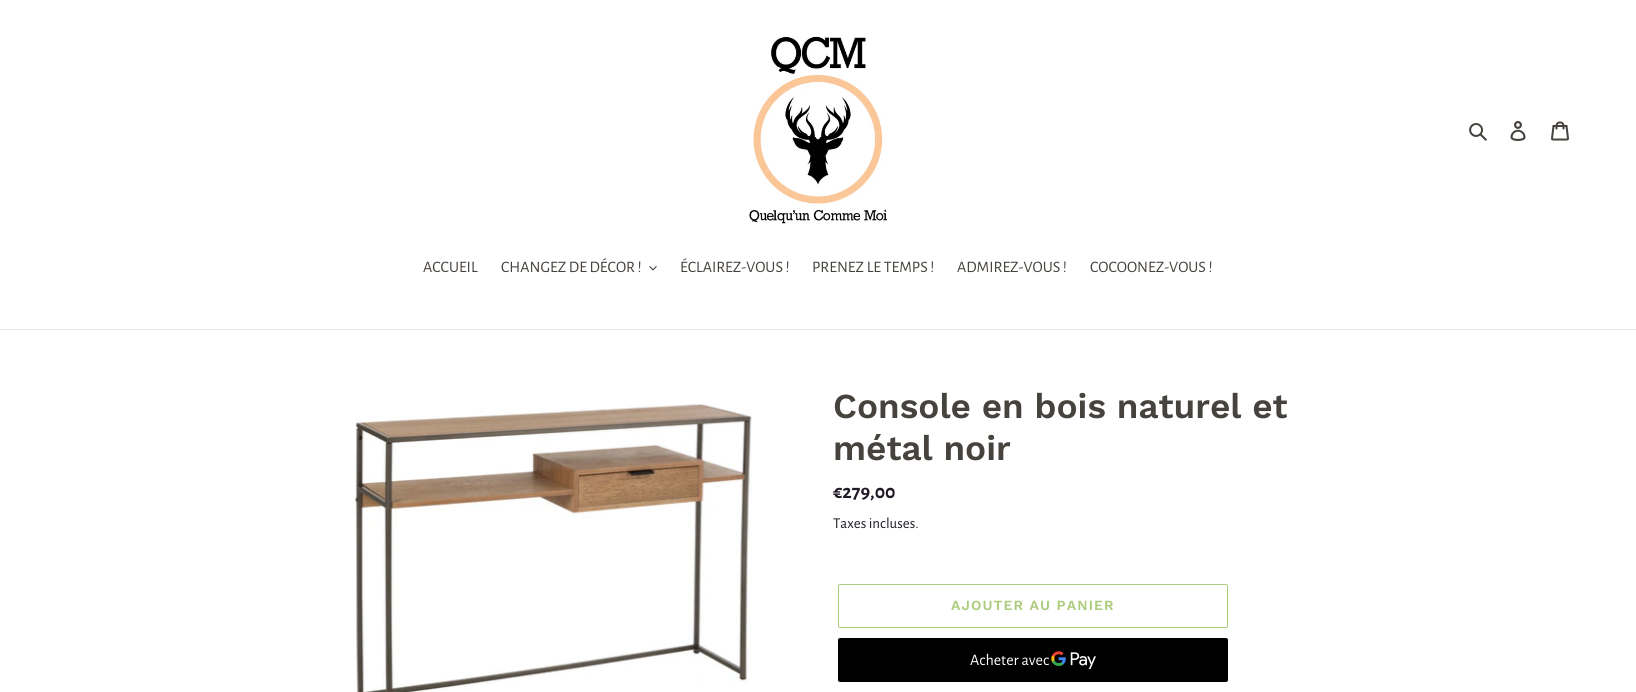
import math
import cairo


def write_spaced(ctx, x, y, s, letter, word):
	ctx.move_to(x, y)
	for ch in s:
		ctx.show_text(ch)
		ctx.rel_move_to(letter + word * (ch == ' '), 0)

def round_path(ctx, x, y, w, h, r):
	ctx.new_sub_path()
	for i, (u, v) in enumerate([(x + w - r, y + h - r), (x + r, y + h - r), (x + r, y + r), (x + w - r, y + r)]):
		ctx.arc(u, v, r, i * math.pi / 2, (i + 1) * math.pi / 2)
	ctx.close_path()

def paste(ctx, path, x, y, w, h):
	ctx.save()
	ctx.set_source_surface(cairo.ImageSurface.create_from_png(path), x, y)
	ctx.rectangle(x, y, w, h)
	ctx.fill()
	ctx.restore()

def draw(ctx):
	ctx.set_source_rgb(1, 1, 1)
	ctx.paint()
	paste(ctx, 'media/1.png', 749, 36, 138, 188)
	paste(ctx, 'media/2.png', 1469, 123, 18, 18)
	paste(ctx, 'media/3.png', 1510, 121, 16, 20)
	paste(ctx, 'media/4.png', 1551, 121, 18, 20)
	ctx.set_source_rgb(0.91, 0.914, 0.922)
	ctx.rectangle(0, 329, 1636, 1)
	ctx.fill()
	ctx.select_font_face('Alegreya Sans')
	ctx.set_font_size(16)
	ctx.set_source_rgb(0.275, 0.259, 0.239)
	ctx.move_to(423, 272)
	ctx.show_text('ACCUEIL')
	ctx.move_to(501, 272)
	ctx.show_text('CHANGEZ DE DÉCOR !')
	paste(ctx, 'media/5.png', 649, 266, 8, 5)
	for x, y, s in [
		(680, 272, 'ÉCLAIREZ-VOUS !'),
		(812, 272, 'PRENEZ LE TEMPS !'),
		(957, 272, 'ADMIREZ-VOUS !'),
		(1090, 272, 'COCOONEZ-VOUS !'),
	]:
		ctx.move_to(x, y)
		ctx.show_text(s)
	paste(ctx, 'media/6.png', 355, 404, 397, 288)
	ctx.select_font_face('Work Sans SemiBold')
	ctx.set_font_size(35)
	ctx.move_to(833, 418)
	ctx.show_text('Console en bois naturel et')
	ctx.move_to(833, 460)
	ctx.show_text('métal noir')
	ctx.select_font_face('Alegreya Sans', cairo.FONT_SLANT_NORMAL, cairo.FONT_WEIGHT_BOLD)
	ctx.set_font_size(20)
	ctx.set_source_rgb(0.125, 0.102, 0.149)
	ctx.move_to(833, 498)
	ctx.show_text('€279,00')
	ctx.select_font_face('Alegreya Sans')
	ctx.set_font_size(15)
	ctx.move_to(833, 528)
	ctx.show_text('Taxes incluses.')
	round_path(ctx, 838.5, 584.5, 389, 43, 1.5)
	ctx.set_source_rgb(0.675, 0.8, 0.486)
	ctx.set_line_width(1)
	ctx.stroke()
	ctx.select_font_face('Work Sans SemiBold')
	ctx.set_font_size(14)
	write_spaced(ctx, 951, 610, 'AJOUTER AU PANIER', 1.1, 0)
	ctx.set_source_rgb(0, 0, 0)
	round_path(ctx, 838, 638, 390, 44, 2)
	ctx.fill()
	ctx.select_font_face('Alegreya Sans')
	ctx.set_font_size(16)
	ctx.set_source_rgb(1, 1, 1)
	ctx.move_to(970, 665)
	ctx.show_text('Acheter avec')
	paste(ctx, 'media/7.png', 1051, 651, 45, 18)


surface = cairo.ImageSurface(cairo.FORMAT_RGB24, 1636, 692)
ctx = cairo.Context(surface)
options = cairo.FontOptions()
options.set_hint_metrics(cairo.HINT_METRICS_OFF)
options.set_hint_style(cairo.HINT_STYLE_NONE)
ctx.set_font_options(options)
ctx.set_miter_limit(4)
draw(ctx)
surface.write_to_png('image.png')
